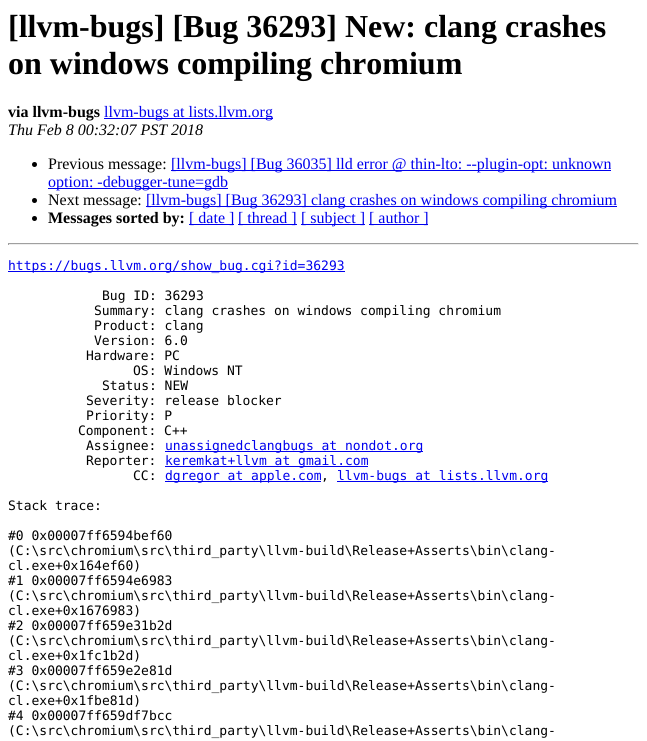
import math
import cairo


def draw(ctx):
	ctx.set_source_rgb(1, 1, 1)
	ctx.paint()
	ctx.select_font_face('Liberation Serif', cairo.FONT_SLANT_NORMAL, cairo.FONT_WEIGHT_BOLD)
	ctx.set_font_size(32)
	ctx.set_source_rgb(0, 0, 0)
	ctx.move_to(8, 37)
	ctx.show_text('[llvm-bugs] [Bug 36293] New: clang crashes')
	ctx.move_to(8, 74)
	ctx.show_text('on windows compiling chromium')
	ctx.set_font_size(16)
	ctx.move_to(8, 117)
	ctx.show_text('via llvm-bugs')
	ctx.set_source_rgb(0, 0, 0.933)
	ctx.rectangle(104, 118, 169, 1)
	ctx.fill()
	ctx.select_font_face('Liberation Serif')
	ctx.move_to(104, 117)
	ctx.show_text('llvm-bugs at lists.llvm.org')
	ctx.select_font_face('Liberation Serif', cairo.FONT_SLANT_ITALIC)
	ctx.set_source_rgb(0, 0, 0)
	ctx.move_to(8, 135)
	ctx.show_text('Thu Feb 8 00:32:07 PST 2018')
	ctx.new_path()
	ctx.arc(34.5, 164.5, 2.5, 0, 2 * math.pi)
	ctx.fill()
	ctx.select_font_face('Liberation Serif')
	ctx.move_to(48, 169)
	ctx.show_text('Previous message:')
	ctx.set_source_rgb(0, 0, 0.933)
	ctx.rectangle(171, 170, 440, 1)
	ctx.fill()
	ctx.move_to(171, 169)
	ctx.show_text('[llvm-bugs] [Bug 36035] lld error @ thin-lto: --plugin-opt: unknown')
	ctx.rectangle(48, 188, 180, 1)
	ctx.fill()
	ctx.move_to(48, 187)
	ctx.show_text('option: -debugger-tune=gdb')
	ctx.set_source_rgb(0, 0, 0)
	ctx.new_path()
	ctx.arc(34.5, 200.5, 2.5, 0, 2 * math.pi)
	ctx.fill()
	ctx.move_to(48, 205)
	ctx.show_text('Next message:')
	ctx.set_source_rgb(0, 0, 0.933)
	ctx.rectangle(146, 206, 471, 1)
	ctx.fill()
	ctx.move_to(146, 205)
	ctx.show_text('[llvm-bugs] [Bug 36293] clang crashes on windows compiling chromium')
	ctx.set_source_rgb(0, 0, 0)
	ctx.new_path()
	ctx.arc(34.5, 218.5, 2.5, 0, 2 * math.pi)
	ctx.fill()
	ctx.select_font_face('Liberation Serif', cairo.FONT_SLANT_NORMAL, cairo.FONT_WEIGHT_BOLD)
	ctx.move_to(48, 223)
	ctx.show_text('Messages sorted by:')
	ctx.set_source_rgb(0, 0, 0.933)
	ctx.rectangle(189, 224, 45, 1)
	ctx.fill()
	ctx.select_font_face('Liberation Serif')
	ctx.move_to(189, 223)
	ctx.show_text('[ date ]')
	ctx.rectangle(238, 224, 59, 1)
	ctx.fill()
	ctx.move_to(238, 223)
	ctx.show_text('[ thread ]')
	ctx.rectangle(301, 224, 64, 1)
	ctx.fill()
	ctx.move_to(301, 223)
	ctx.show_text('[ subject ]')
	ctx.rectangle(369, 224, 59, 1)
	ctx.fill()
	ctx.move_to(369, 223)
	ctx.show_text('[ author ]')
	ctx.set_source_rgb(0.624, 0.624, 0.624)
	ctx.rectangle(8, 243, 631, 1)
	ctx.fill()
	ctx.set_source_rgb(0.933, 0.933, 0.933)
	ctx.rectangle(638, 243, 1, 2)
	ctx.rectangle(8, 244, 631, 1)
	ctx.fill()
	ctx.set_source_rgb(0.624, 0.624, 0.624)
	ctx.rectangle(8, 243, 1, 2)
	ctx.fill()
	ctx.set_source_rgb(0, 0, 0.933)
	ctx.rectangle(8, 271, 337, 1)
	ctx.fill()
	ctx.select_font_face('DejaVu Sans Mono')
	ctx.set_font_size(13)
	ctx.move_to(8, 270)
	ctx.show_text('https://bugs.llvm.org/show_bug.cgi?id=36293')
	ctx.set_source_rgb(0, 0, 0)
	for x, y, s in [
		(102, 300, 'Bug ID: 36293'),
		(94, 315, 'Summary: clang crashes on windows compiling chromium'),
		(94, 330, 'Product: clang'),
		(94, 345, 'Version: 6.0'),
		(86, 360, 'Hardware: PC'),
		(133, 375, 'OS: Windows NT'),
		(102, 390, 'Status: NEW'),
		(86, 405, 'Severity: release blocker'),
		(86, 420, 'Priority: P'),
		(78, 435, 'Component: C++'),
		(86, 450, 'Assignee:'),
	]:
		ctx.move_to(x, y)
		ctx.show_text(s)
	ctx.set_source_rgb(0, 0, 0.933)
	ctx.rectangle(165, 451, 258, 1)
	ctx.fill()
	ctx.move_to(165, 450)
	ctx.show_text('unassignedclangbugs at nondot.org')
	ctx.set_source_rgb(0, 0, 0)
	ctx.move_to(86, 465)
	ctx.show_text('Reporter:')
	ctx.set_source_rgb(0, 0, 0.933)
	ctx.rectangle(165, 466, 203, 1)
	ctx.fill()
	ctx.move_to(165, 465)
	ctx.show_text('keremkat+llvm at gmail.com')
	ctx.set_source_rgb(0, 0, 0)
	ctx.move_to(133, 480)
	ctx.show_text('CC:')
	ctx.set_source_rgb(0, 0, 0.933)
	ctx.rectangle(165, 481, 156, 1)
	ctx.fill()
	ctx.move_to(165, 480)
	ctx.show_text('dgregor at apple.com')
	ctx.set_source_rgb(0, 0, 0)
	ctx.move_to(321, 480)
	ctx.show_text(',')
	ctx.set_source_rgb(0, 0, 0.933)
	ctx.rectangle(337, 481, 211, 1)
	ctx.fill()
	ctx.move_to(337, 480)
	ctx.show_text('llvm-bugs at lists.llvm.org')
	ctx.set_source_rgb(0, 0, 0)
	for x, y, s in [
		(8, 510, 'Stack trace:'),
		(8, 540, '#0 0x00007ff6594bef60'),
		(8, 555, '(C:\\src\\chromium\\src\\third_party\\llvm-build\\Release+Asserts\\bin\\clang-'),
		(8, 570, 'cl.exe+0x164ef60)'),
		(8, 585, '#1 0x00007ff6594e6983'),
		(8, 600, '(C:\\src\\chromium\\src\\third_party\\llvm-build\\Release+Asserts\\bin\\clang-'),
		(8, 615, 'cl.exe+0x1676983)'),
		(8, 630, '#2 0x00007ff659e31b2d'),
		(8, 645, '(C:\\src\\chromium\\src\\third_party\\llvm-build\\Release+Asserts\\bin\\clang-'),
		(8, 660, 'cl.exe+0x1fc1b2d)'),
		(8, 675, '#3 0x00007ff659e2e81d'),
		(8, 690, '(C:\\src\\chromium\\src\\third_party\\llvm-build\\Release+Asserts\\bin\\clang-'),
		(8, 705, 'cl.exe+0x1fbe81d)'),
		(8, 720, '#4 0x00007ff659df7bcc'),
		(8, 735, '(C:\\src\\chromium\\src\\third_party\\llvm-build\\Release+Asserts\\bin\\clang-'),
	]:
		ctx.move_to(x, y)
		ctx.show_text(s)


surface = cairo.ImageSurface(cairo.FORMAT_RGB24, 647, 741)
ctx = cairo.Context(surface)
options = cairo.FontOptions()
options.set_hint_metrics(cairo.HINT_METRICS_OFF)
options.set_hint_style(cairo.HINT_STYLE_NONE)
ctx.set_font_options(options)
ctx.set_miter_limit(4)
draw(ctx)
surface.write_to_png('image.png')
